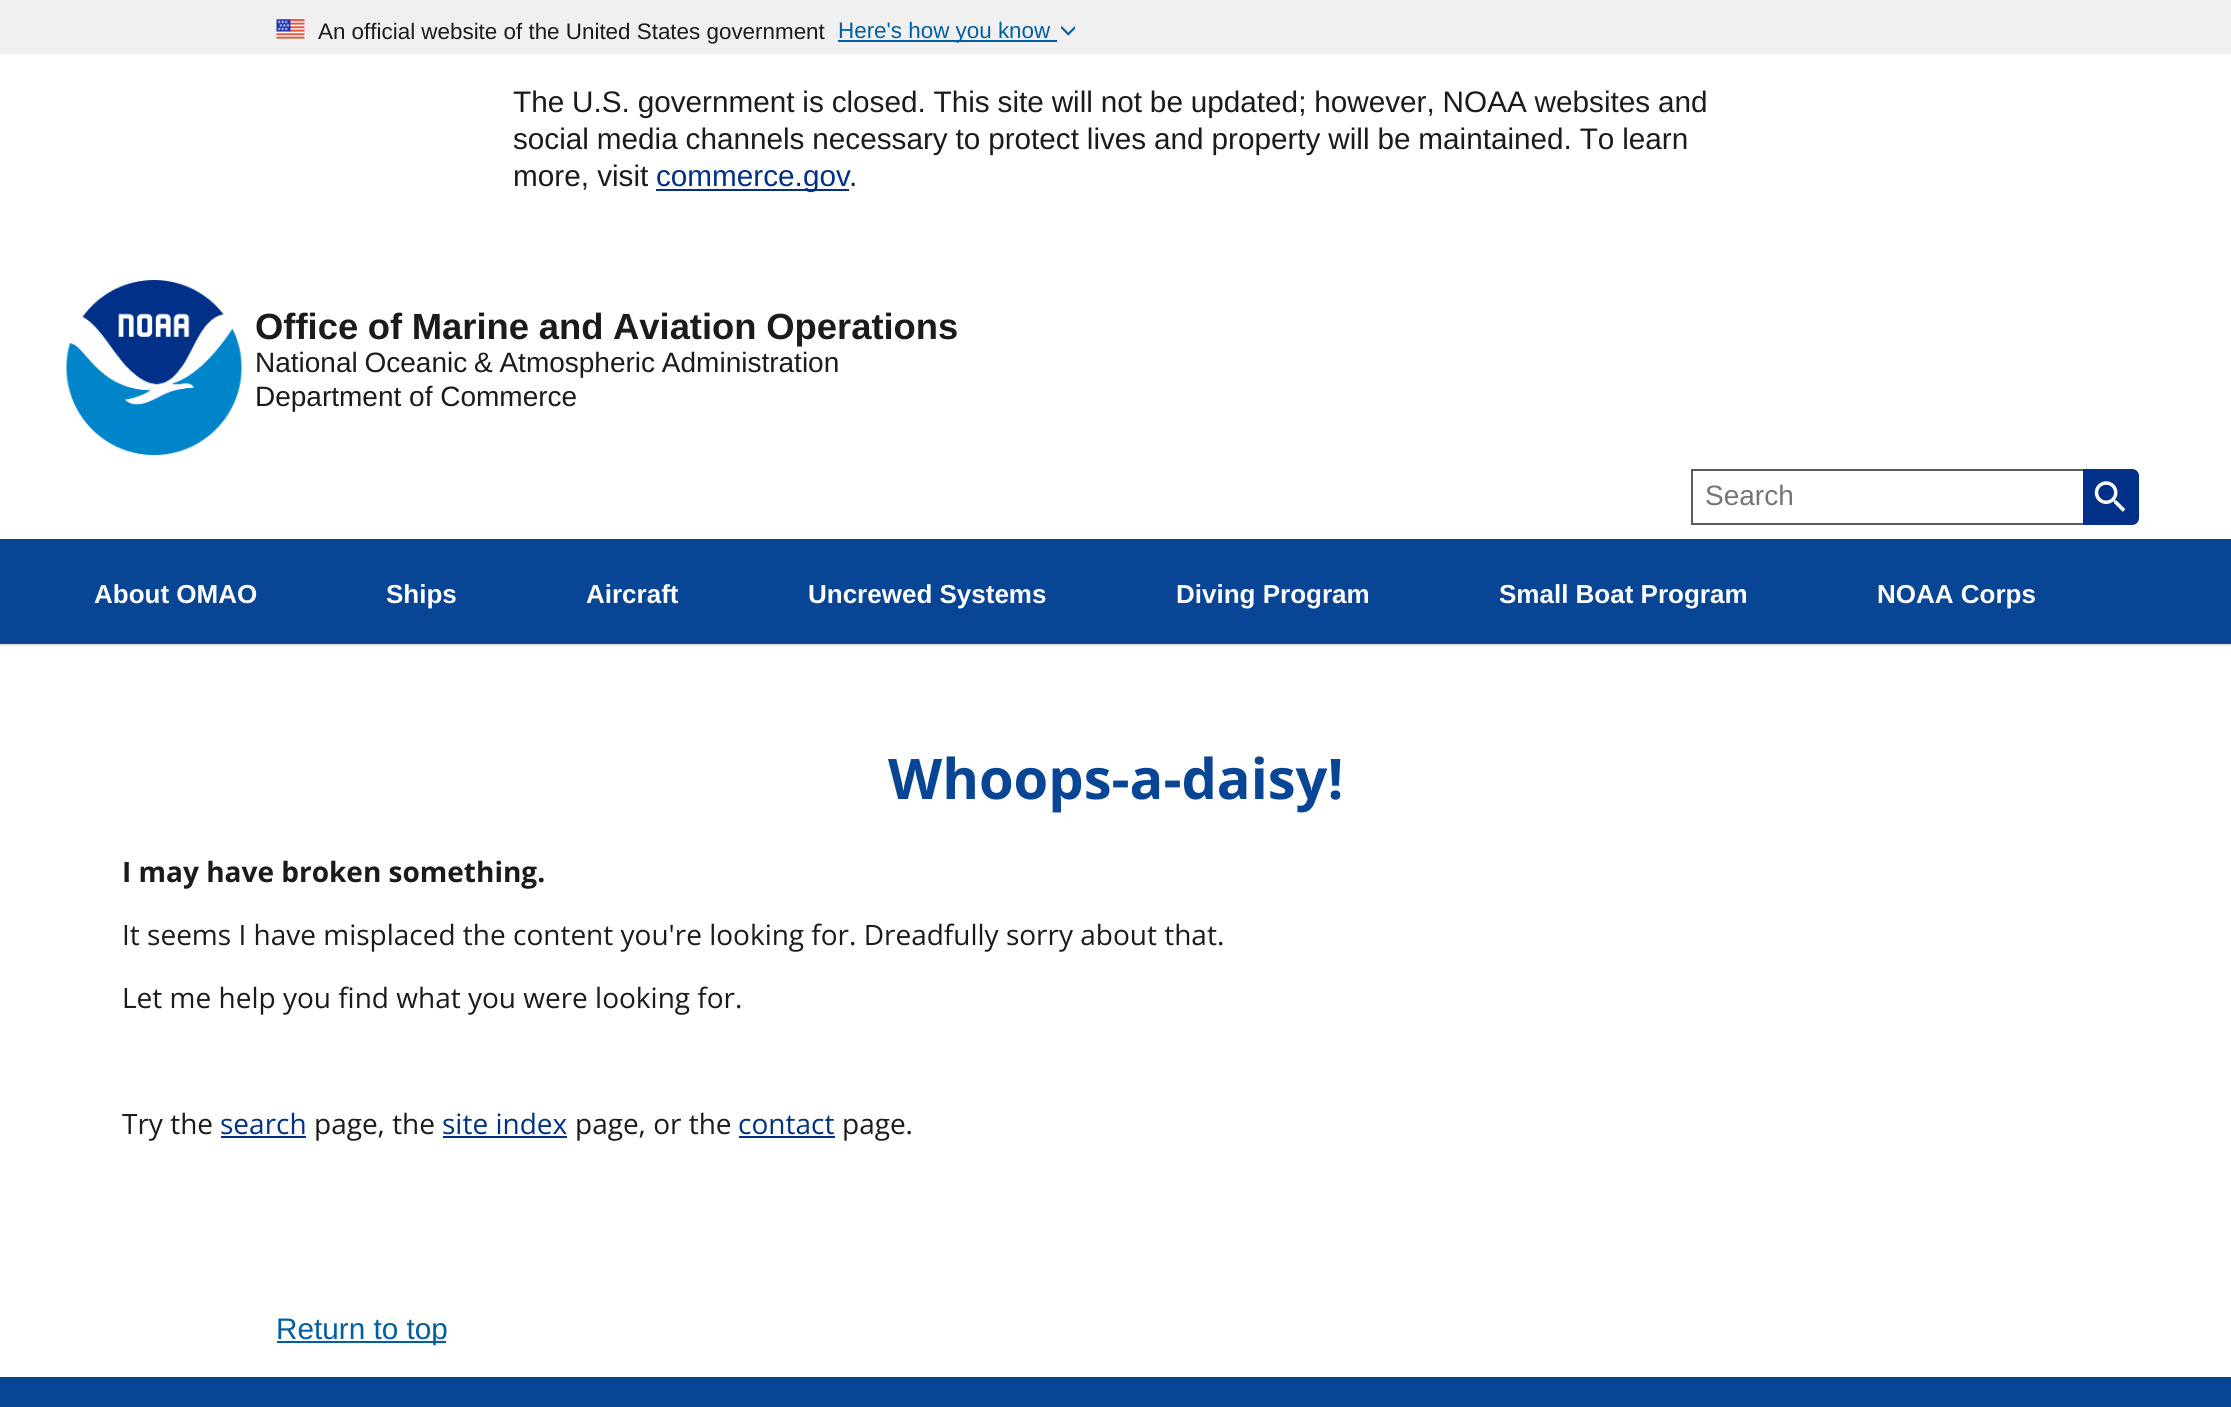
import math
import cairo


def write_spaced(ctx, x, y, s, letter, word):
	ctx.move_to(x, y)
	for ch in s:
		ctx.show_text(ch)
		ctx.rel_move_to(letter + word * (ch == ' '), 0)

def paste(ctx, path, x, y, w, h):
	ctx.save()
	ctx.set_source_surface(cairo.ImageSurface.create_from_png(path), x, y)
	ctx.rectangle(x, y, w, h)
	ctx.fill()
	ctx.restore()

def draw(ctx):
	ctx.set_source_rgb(1, 1, 1)
	ctx.paint()
	ctx.set_source_rgb(0.941, 0.941, 0.941)
	ctx.rectangle(0, 0, 2231, 54)
	ctx.fill()
	paste(ctx, 'media/1.png', 276, 19, 29, 20)
	ctx.select_font_face('Liberation Sans')
	ctx.set_font_size(22.4)
	ctx.set_source_rgb(0.106, 0.106, 0.106)
	ctx.move_to(318, 39)
	ctx.show_text('An official website of the United States government')
	ctx.set_source_rgb(0, 0.369, 0.635)
	ctx.rectangle(838, 40, 212, 2)
	ctx.fill()
	ctx.move_to(838, 38)
	ctx.show_text('Here\'s how you know')
	paste(ctx, 'media/2.png', 1061, 26, 14, 10)
	ctx.rectangle(1050, 40, 7, 2)
	ctx.fill()
	ctx.set_font_size(29.7)
	ctx.set_source_rgb(0.106, 0.106, 0.106)
	write_spaced(ctx, 513, 112, 'The U.S. government is closed. This site will not be updated; however, NOAA websites and', 0, -0.4)
	write_spaced(ctx, 513, 149, 'social media channels necessary to protect lives and property will be maintained. To learn', 0, -0.4)
	ctx.move_to(513, 186)
	ctx.show_text('more, visit')
	ctx.set_source_rgb(0, 0.188, 0.529)
	ctx.rectangle(656, 189, 193, 2)
	ctx.fill()
	ctx.move_to(656, 186)
	ctx.show_text('commerce.gov')
	ctx.set_source_rgb(0.106, 0.106, 0.106)
	ctx.move_to(849, 186)
	ctx.show_text('.')
	paste(ctx, 'media/3.png', 66, 280, 176, 175)
	ctx.select_font_face('Liberation Sans', cairo.FONT_SLANT_NORMAL, cairo.FONT_WEIGHT_BOLD)
	ctx.set_font_size(36.4)
	write_spaced(ctx, 255, 339, 'Office of Marine and Aviation Operations', 0, -0.5)
	ctx.select_font_face('Liberation Sans')
	ctx.set_font_size(28)
	write_spaced(ctx, 255, 372, 'National Oceanic & Atmospheric Administration', 0, -1)
	ctx.move_to(255, 406)
	ctx.show_text('Department of Commerce')
	ctx.set_source_rgb(0.039, 0.271, 0.584)
	ctx.rectangle(0, 539, 2231, 105)
	ctx.fill()
	ctx.set_source_rgb(0.337, 0.361, 0.396)
	ctx.rectangle(1691, 469, 392, 2)
	ctx.rectangle(1691, 523, 392, 2)
	ctx.rectangle(1691, 469, 2, 56)
	ctx.fill()
	ctx.set_source_rgb(0.459, 0.459, 0.459)
	ctx.move_to(1705, 505)
	ctx.show_text('Search')
	ctx.set_source_rgb(0, 0.188, 0.529)
	ctx.new_path()
	ctx.move_to(2083, 469)
	ctx.line_to(2132, 469)
	ctx.curve_to(2136, 469, 2139, 472, 2139, 476)
	ctx.line_to(2139, 518)
	ctx.curve_to(2139, 522, 2136, 525, 2132, 525)
	ctx.line_to(2083, 525)
	ctx.close_path()
	ctx.fill()
	paste(ctx, 'media/4.png', 2094, 481, 32, 31)
	ctx.select_font_face('Liberation Sans', cairo.FONT_SLANT_NORMAL, cairo.FONT_WEIGHT_BOLD)
	ctx.set_font_size(26)
	ctx.set_source_rgb(1, 1, 1)
	for x, y, s in [
		(94, 603, 'About OMAO'),
		(386, 603, 'Ships'),
		(586, 603, 'Aircraft'),
		(808, 603, 'Uncrewed Systems'),
		(1176, 603, 'Diving Program'),
		(1499, 603, 'Small Boat Program'),
		(1877, 603, 'NOAA Corps'),
	]:
		ctx.move_to(x, y)
		ctx.show_text(s)
	ctx.set_source_rgb(0.875, 0.882, 0.886)
	ctx.rectangle(0, 644, 2231, 2)
	ctx.fill()
	ctx.select_font_face('Open Sans', cairo.FONT_SLANT_NORMAL, cairo.FONT_WEIGHT_BOLD)
	ctx.set_font_size(56)
	ctx.set_source_rgb(0.039, 0.271, 0.584)
	ctx.move_to(888, 799)
	ctx.show_text('Whoops-a-daisy!')
	ctx.set_font_size(28)
	ctx.set_source_rgb(0.106, 0.106, 0.106)
	ctx.move_to(122, 882)
	ctx.show_text('I may have broken something.')
	ctx.select_font_face('Open Sans')
	for x, y, s in [
		(122, 945, 'It seems I have misplaced the content you\'re looking for. Dreadfully sorry about that.'),
		(122, 1008, 'Let me help you find what you were looking for.'),
		(122, 1134, 'Try the'),
	]:
		ctx.move_to(x, y)
		ctx.show_text(s)
	ctx.set_source_rgb(0, 0.188, 0.529)
	ctx.move_to(220, 1134)
	ctx.show_text('search')
	ctx.rectangle(221, 1136, 85, 2)
	ctx.fill()
	ctx.set_source_rgb(0.106, 0.106, 0.106)
	ctx.move_to(314, 1134)
	ctx.show_text('page, the')
	ctx.set_source_rgb(0, 0.188, 0.529)
	ctx.move_to(442, 1134)
	ctx.show_text('site index')
	ctx.rectangle(443, 1136, 124, 2)
	ctx.fill()
	ctx.set_source_rgb(0.106, 0.106, 0.106)
	ctx.move_to(575, 1134)
	ctx.show_text('page, or the')
	ctx.set_source_rgb(0, 0.188, 0.529)
	ctx.move_to(738, 1134)
	ctx.show_text('contact')
	ctx.rectangle(739, 1136, 96, 2)
	ctx.fill()
	ctx.set_source_rgb(0.106, 0.106, 0.106)
	ctx.move_to(842, 1134)
	ctx.show_text('page.')
	ctx.set_source_rgb(0, 0.369, 0.635)
	ctx.rectangle(277, 1341, 169, 2)
	ctx.fill()
	ctx.select_font_face('Liberation Sans')
	ctx.set_font_size(29.7)
	ctx.move_to(276, 1339)
	ctx.show_text('Return to top')
	ctx.set_source_rgb(0.039, 0.271, 0.584)
	ctx.rectangle(0, 1377, 2231, 30)
	ctx.fill()


surface = cairo.ImageSurface(cairo.FORMAT_RGB24, 2231, 1407)
ctx = cairo.Context(surface)
options = cairo.FontOptions()
options.set_hint_metrics(cairo.HINT_METRICS_OFF)
options.set_hint_style(cairo.HINT_STYLE_NONE)
ctx.set_font_options(options)
ctx.set_miter_limit(4)
draw(ctx)
surface.write_to_png('image.png')
